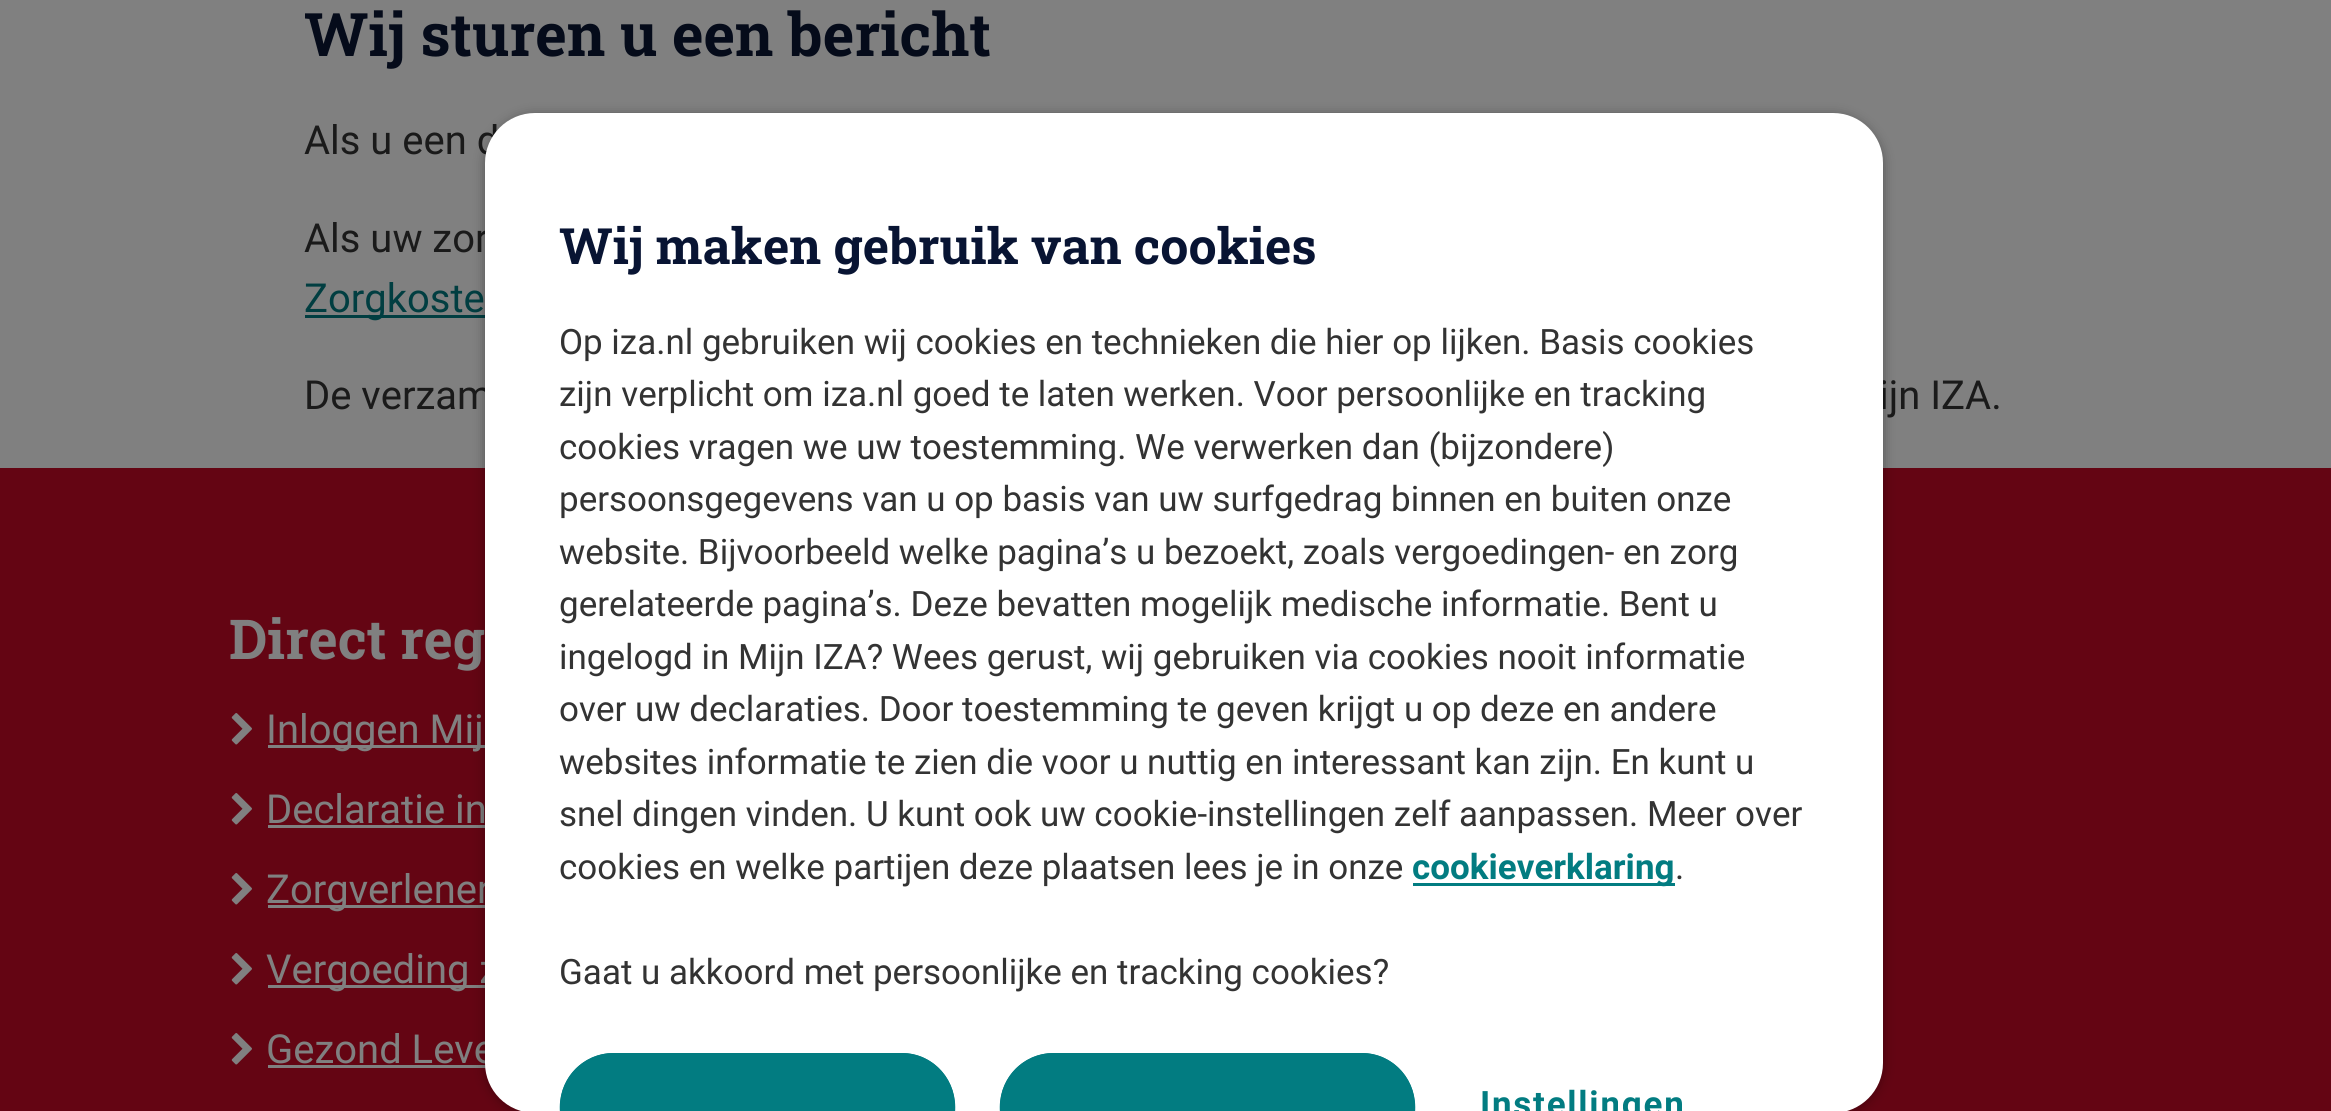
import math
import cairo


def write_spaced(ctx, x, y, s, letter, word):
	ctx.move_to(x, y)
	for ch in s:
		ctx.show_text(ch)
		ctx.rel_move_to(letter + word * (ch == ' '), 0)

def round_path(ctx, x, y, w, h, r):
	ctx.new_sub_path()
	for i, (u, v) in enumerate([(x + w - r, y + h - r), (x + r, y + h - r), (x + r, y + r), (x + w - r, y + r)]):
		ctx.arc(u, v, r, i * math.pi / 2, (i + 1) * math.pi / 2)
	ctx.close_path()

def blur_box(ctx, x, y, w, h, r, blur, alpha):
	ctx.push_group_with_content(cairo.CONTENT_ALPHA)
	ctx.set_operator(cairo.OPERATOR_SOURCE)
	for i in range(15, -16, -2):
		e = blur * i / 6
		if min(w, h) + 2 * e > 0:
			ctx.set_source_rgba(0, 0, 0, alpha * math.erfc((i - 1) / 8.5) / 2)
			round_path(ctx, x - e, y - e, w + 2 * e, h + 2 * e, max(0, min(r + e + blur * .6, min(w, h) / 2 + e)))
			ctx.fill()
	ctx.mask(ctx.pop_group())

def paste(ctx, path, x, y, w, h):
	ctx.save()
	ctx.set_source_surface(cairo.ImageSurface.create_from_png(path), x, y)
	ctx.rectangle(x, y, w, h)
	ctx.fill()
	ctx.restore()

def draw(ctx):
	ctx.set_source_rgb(0.502, 0.502, 0.502)
	ctx.paint()
	ctx.select_font_face('Roboto Slab', cairo.FONT_SLANT_NORMAL, cairo.FONT_WEIGHT_BOLD)
	ctx.set_font_size(60)
	ctx.set_source_rgb(0.02, 0.043, 0.102)
	ctx.move_to(304, 56)
	ctx.show_text('Wij sturen u een bericht')
	ctx.select_font_face('Roboto')
	ctx.set_font_size(40)
	ctx.set_source_rgb(0.102, 0.102, 0.102)
	ctx.move_to(304, 154)
	ctx.show_text('Als u een d')
	ctx.move_to(304, 252)
	ctx.show_text('Als uw zor')
	ctx.set_source_rgb(0.004, 0.243, 0.255)
	ctx.rectangle(305, 315, 180, 3)
	ctx.fill()
	ctx.move_to(304, 312)
	ctx.show_text('Zorgkoste')
	ctx.set_source_rgb(0.102, 0.102, 0.102)
	ctx.move_to(304, 409)
	ctx.show_text('De verzam')
	ctx.move_to(1879, 409)
	ctx.show_text('ijn IZA.')
	ctx.set_source_rgb(0.392, 0.02, 0.078)
	ctx.rectangle(0, 468, 2331, 643)
	ctx.fill()
	ctx.select_font_face('Roboto Slab', cairo.FONT_SLANT_NORMAL, cairo.FONT_WEIGHT_BOLD)
	ctx.set_font_size(55)
	ctx.set_source_rgb(0.502, 0.502, 0.502)
	ctx.move_to(229, 659)
	ctx.show_text('Direct reg')
	paste(ctx, 'media/1.png', 231, 713, 21, 32)
	ctx.rectangle(268, 745, 217, 3)
	ctx.fill()
	ctx.select_font_face('Roboto')
	ctx.set_font_size(40)
	ctx.move_to(266, 743)
	ctx.show_text('Inloggen Mij')
	paste(ctx, 'media/1.png', 231, 793, 21, 32)
	ctx.move_to(266, 823)
	ctx.show_text('Declaratie in')
	ctx.rectangle(268, 825, 217, 3)
	ctx.fill()
	paste(ctx, 'media/1.png', 231, 873, 21, 32)
	ctx.rectangle(268, 905, 217, 3)
	ctx.fill()
	ctx.move_to(266, 903)
	ctx.show_text('Zorgverlener')
	paste(ctx, 'media/1.png', 231, 953, 21, 32)
	ctx.rectangle(268, 985, 217, 3)
	ctx.fill()
	ctx.move_to(266, 983)
	ctx.show_text('Vergoeding z')
	paste(ctx, 'media/1.png', 231, 1033, 21, 32)
	ctx.move_to(266, 1063)
	ctx.show_text('Gezond Leve')
	ctx.rectangle(268, 1065, 218, 3)
	ctx.fill()
	ctx.set_source_rgb(0, 0, 0)
	blur_box(ctx, 485, 115, 1398, 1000, 50, 6, 0.35)
	ctx.set_source_rgb(1, 1, 1)
	round_path(ctx, 485, 113, 1398, 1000, 50)
	ctx.fill()
	ctx.select_font_face('Roboto Slab', cairo.FONT_SLANT_NORMAL, cairo.FONT_WEIGHT_BOLD)
	ctx.set_font_size(50)
	ctx.set_source_rgb(0.035, 0.082, 0.2)
	ctx.move_to(559, 264)
	ctx.show_text('Wij maken gebruik van cookies')
	ctx.select_font_face('Roboto')
	ctx.set_font_size(35)
	ctx.set_source_rgb(0.2, 0.2, 0.2)
	for x, y, s in [
		(559, 354, 'Op iza.nl gebruiken wij cookies en technieken die hier op lijken. Basis cookies'),
		(559, 406, 'zijn verplicht om iza.nl goed te laten werken. Voor persoonlijke en tracking'),
		(559, 459, 'cookies vragen we uw toestemming. We verwerken dan (bijzondere)'),
		(559, 511, 'persoonsgegevens van u op basis van uw surfgedrag binnen en buiten onze'),
		(559, 564, 'website. Bijvoorbeeld welke pagina’s u bezoekt, zoals vergoedingen- en zorg'),
		(559, 616, 'gerelateerde pagina’s. Deze bevatten mogelijk medische informatie. Bent u'),
		(559, 669, 'ingelogd in Mijn IZA? Wees gerust, wij gebruiken via cookies nooit informatie'),
		(559, 721, 'over uw declaraties. Door toestemming te geven krijgt u op deze en andere'),
		(559, 774, 'websites informatie te zien die voor u nuttig en interessant kan zijn. En kunt u'),
		(559, 826, 'snel dingen vinden. U kunt ook uw cookie-instellingen zelf aanpassen. Meer over'),
		(559, 879, 'cookies en welke partijen deze plaatsen lees je in onze'),
	]:
		ctx.move_to(x, y)
		ctx.show_text(s)
	ctx.set_source_rgb(0.008, 0.486, 0.506)
	ctx.rectangle(1413, 883, 262, 3)
	ctx.fill()
	ctx.select_font_face('Roboto', cairo.FONT_SLANT_NORMAL, cairo.FONT_WEIGHT_BOLD)
	ctx.move_to(1412, 879)
	ctx.show_text('cookieverklaring')
	ctx.select_font_face('Roboto')
	ctx.set_source_rgb(0.2, 0.2, 0.2)
	ctx.move_to(1675, 879)
	ctx.show_text('.')
	ctx.move_to(559, 984)
	ctx.show_text('Gaat u akkoord met persoonlijke en tracking cookies?')
	ctx.set_source_rgb(0.008, 0.486, 0.506)
	round_path(ctx, 560, 1053, 395, 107, 53.5)
	ctx.fill()
	ctx.new_path()
	ctx.move_to(614, 1053)
	ctx.curve_to(581, 1053, 557, 1081, 560, 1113)
	ctx.line_to(565, 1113)
	ctx.line_to(565, 1106)
	ctx.curve_to(565, 1080, 587, 1058, 614, 1058)
	ctx.line_to(902, 1058)
	ctx.curve_to(928, 1058, 950, 1080, 950, 1106)
	ctx.line_to(950, 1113)
	ctx.line_to(955, 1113)
	ctx.curve_to(958, 1081, 934, 1053, 902, 1053)
	ctx.close_path()
	ctx.fill()
	round_path(ctx, 1000, 1053, 415, 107, 53.5)
	ctx.fill()
	ctx.new_path()
	ctx.move_to(1054, 1053)
	ctx.curve_to(1021, 1053, 997, 1081, 1000, 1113)
	ctx.line_to(1005, 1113)
	ctx.line_to(1005, 1106)
	ctx.curve_to(1005, 1080, 1027, 1058, 1054, 1058)
	ctx.line_to(1362, 1058)
	ctx.curve_to(1388, 1058, 1410, 1080, 1410, 1106)
	ctx.line_to(1410, 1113)
	ctx.line_to(1415, 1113)
	ctx.curve_to(1418, 1081, 1394, 1053, 1362, 1053)
	ctx.close_path()
	ctx.fill()
	ctx.select_font_face('Roboto', cairo.FONT_SLANT_NORMAL, cairo.FONT_WEIGHT_BOLD)
	write_spaced(ctx, 1480, 1116, 'Instellingen', 1.75, 0)


surface = cairo.ImageSurface(cairo.FORMAT_RGB24, 2331, 1111)
ctx = cairo.Context(surface)
options = cairo.FontOptions()
options.set_hint_metrics(cairo.HINT_METRICS_OFF)
options.set_hint_style(cairo.HINT_STYLE_NONE)
ctx.set_font_options(options)
ctx.set_miter_limit(4)
draw(ctx)
surface.write_to_png('image.png')
